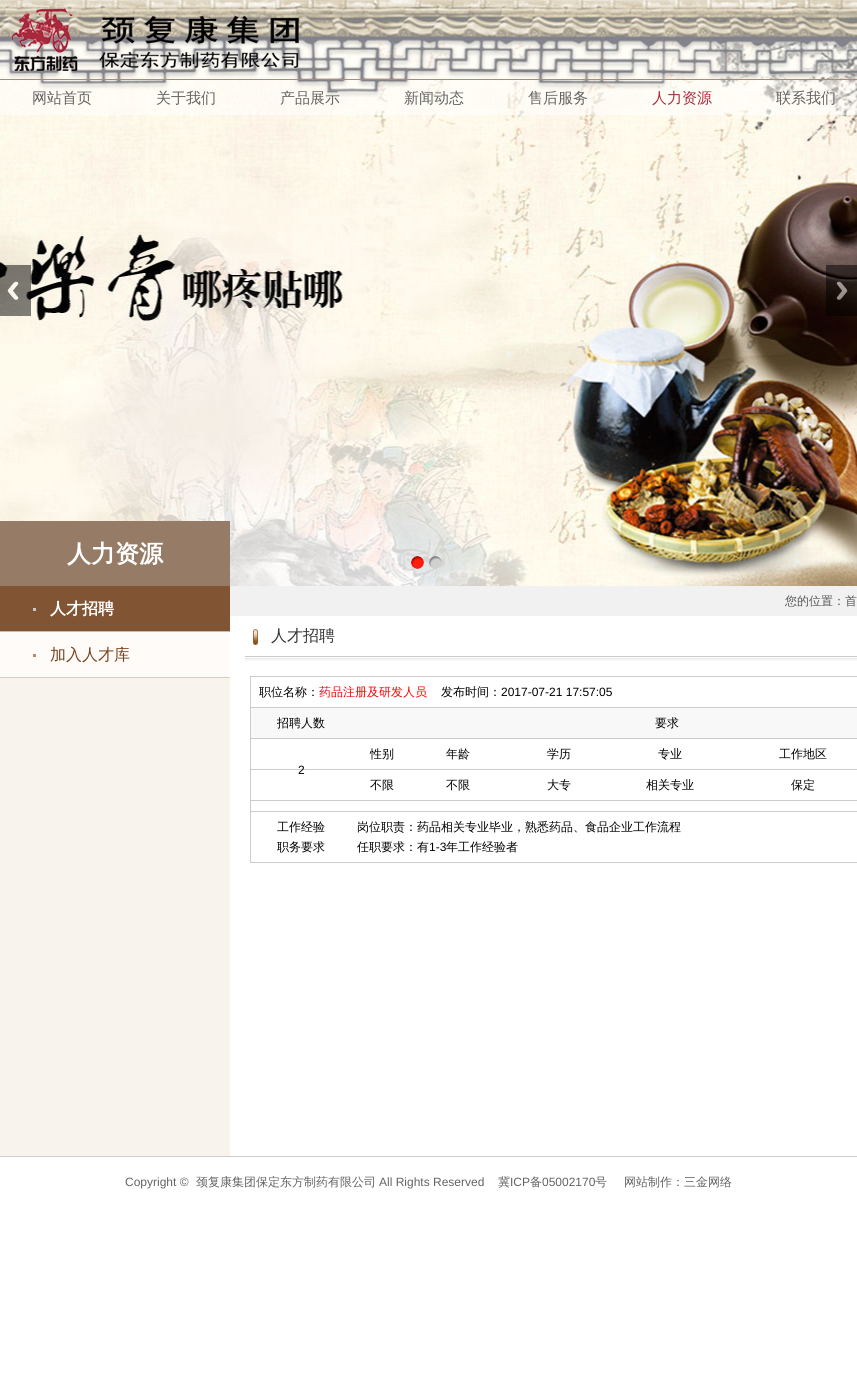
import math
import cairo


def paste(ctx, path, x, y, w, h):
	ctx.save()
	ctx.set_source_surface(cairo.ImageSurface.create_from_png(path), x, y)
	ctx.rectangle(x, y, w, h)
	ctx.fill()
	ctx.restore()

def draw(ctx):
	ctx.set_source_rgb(1, 1, 1)
	ctx.paint()
	paste(ctx, 'media/1.png', 0, 0, 857, 586)
	paste(ctx, 'media/2.png', 0, 265, 31, 51)
	paste(ctx, 'media/3.png', 826, 265, 31, 51)
	paste(ctx, 'media/4.png', 411, 556, 13, 13)
	paste(ctx, 'media/5.png', 429, 556, 13, 13)
	paste(ctx, 'media/6.png', 0, 0, 857, 115)
	paste(ctx, 'media/7.png', 11, 8, 288, 63)
	ctx.select_font_face('WenQuanYi Zen Hei Medium')
	ctx.set_font_size(15)
	ctx.set_source_rgb(0.388, 0.388, 0.388)
	for x, y, s in [
		(32, 103, '网站首页'),
		(156, 103, '关于我们'),
		(280, 103, '产品展示'),
		(404, 103, '新闻动态'),
		(528, 103, '售后服务'),
	]:
		ctx.move_to(x, y)
		ctx.show_text(s)
	ctx.set_source_rgb(0.655, 0.161, 0.231)
	ctx.move_to(652, 103)
	ctx.show_text('人力资源')
	ctx.set_source_rgb(0.388, 0.388, 0.388)
	ctx.move_to(776, 103)
	ctx.show_text('联系我们')
	ctx.set_source_rgb(0.969, 0.953, 0.922)
	ctx.rectangle(0, 678, 230, 478)
	ctx.fill()
	ctx.set_source_rgb(0.588, 0.486, 0.404)
	ctx.rectangle(0, 521, 230, 65)
	ctx.fill()
	ctx.select_font_face('WenQuanYi Zen Hei', cairo.FONT_SLANT_NORMAL, cairo.FONT_WEIGHT_BOLD)
	ctx.set_font_size(24)
	ctx.set_source_rgb(1, 1, 1)
	ctx.move_to(67, 562)
	ctx.show_text('人力资源')
	paste(ctx, 'media/8.png', 0, 586, 230, 46)
	ctx.set_font_size(16)
	ctx.move_to(50, 614)
	ctx.show_text('人才招聘')
	paste(ctx, 'media/9.png', 0, 632, 230, 46)
	ctx.select_font_face('WenQuanYi Zen Hei Medium')
	ctx.set_source_rgb(0.463, 0.267, 0.114)
	ctx.move_to(50, 660)
	ctx.show_text('加入人才库')
	ctx.set_source_rgb(0.945, 0.945, 0.945)
	ctx.rectangle(230, 586, 627, 30)
	ctx.fill()
	ctx.set_font_size(12)
	ctx.set_source_rgb(0.337, 0.337, 0.337)
	ctx.move_to(785, 605)
	ctx.show_text('您的位置：首')
	paste(ctx, 'media/10.png', 245, 629, 612, 32)
	ctx.set_font_size(16)
	ctx.set_source_rgb(0.2, 0.2, 0.2)
	ctx.move_to(271, 641)
	ctx.show_text('人才招聘')
	ctx.set_source_rgb(0.8, 0.8, 0.8)
	ctx.rectangle(250, 676, 607, 187)
	ctx.fill()
	ctx.set_source_rgb(1, 1, 1)
	ctx.rectangle(251, 677, 606, 30)
	ctx.fill()
	ctx.set_font_size(12)
	ctx.set_source_rgb(0, 0, 0)
	ctx.move_to(259, 696)
	ctx.show_text('职位名称：')
	ctx.set_source_rgb(1, 0, 0)
	ctx.move_to(319, 696)
	ctx.show_text('药品注册及研发人员')
	ctx.set_source_rgb(0, 0, 0)
	ctx.move_to(441, 696)
	ctx.show_text('发布时间：')
	ctx.select_font_face('Liberation Sans')
	ctx.move_to(501, 696)
	ctx.show_text('2017-07-21 17:57:05')
	ctx.set_source_rgb(0.969, 0.969, 0.969)
	ctx.rectangle(251, 708, 606, 30)
	ctx.fill()
	ctx.select_font_face('WenQuanYi Zen Hei Medium')
	ctx.set_source_rgb(0, 0, 0)
	ctx.move_to(277, 727)
	ctx.show_text('招聘人数')
	ctx.move_to(655, 727)
	ctx.show_text('要求')
	ctx.set_source_rgb(1, 1, 1)
	ctx.rectangle(251, 739, 606, 30)
	ctx.fill()
	ctx.set_source_rgb(0, 0, 0)
	for x, y, s in [
		(370, 758, '性别'),
		(446, 758, '年龄'),
		(547, 758, '学历'),
		(658, 758, '专业'),
		(779, 758, '工作地区'),
	]:
		ctx.move_to(x, y)
		ctx.show_text(s)
	ctx.set_source_rgb(1, 1, 1)
	ctx.rectangle(251, 770, 606, 30)
	ctx.fill()
	ctx.select_font_face('Liberation Sans')
	ctx.set_source_rgb(0, 0, 0)
	ctx.move_to(298, 774)
	ctx.show_text('2')
	ctx.select_font_face('WenQuanYi Zen Hei Medium')
	for x, y, s in [
		(370, 789, '不限'),
		(446, 789, '不限'),
		(547, 789, '大专'),
		(646, 789, '相关专业'),
		(791, 789, '保定'),
	]:
		ctx.move_to(x, y)
		ctx.show_text(s)
	ctx.set_source_rgb(1, 1, 1)
	ctx.rectangle(251, 801, 606, 10)
	ctx.fill()
	ctx.rectangle(251, 812, 606, 50)
	ctx.fill()
	ctx.set_source_rgb(0, 0, 0)
	for x, y, s in [
		(277, 831, '工作经验'),
		(277, 851, '职务要求'),
		(357, 831, '岗位职责：药品相关专业毕业，熟悉药品、食品企业工作流程'),
		(357, 851, '任职要求：有'),
	]:
		ctx.move_to(x, y)
		ctx.show_text(s)
	ctx.select_font_face('Liberation Sans')
	ctx.move_to(429, 851)
	ctx.show_text('1-3')
	ctx.select_font_face('WenQuanYi Zen Hei Medium')
	ctx.move_to(446, 851)
	ctx.show_text('年工作经验者')
	ctx.set_source_rgb(0.8, 0.8, 0.8)
	ctx.rectangle(0, 1156, 857, 1)
	ctx.fill()
	ctx.select_font_face('Liberation Sans')
	ctx.set_source_rgb(0.388, 0.388, 0.388)
	ctx.move_to(125, 1186)
	ctx.show_text('Copyright ©')
	ctx.select_font_face('WenQuanYi Zen Hei Medium')
	ctx.move_to(196, 1186)
	ctx.show_text('颈复康集团保定东方制药有限公司')
	ctx.select_font_face('Liberation Sans')
	ctx.move_to(379, 1186)
	ctx.show_text('All Rights Reserved')
	ctx.select_font_face('WenQuanYi Zen Hei Medium')
	ctx.move_to(498, 1186)
	ctx.show_text('冀')
	ctx.select_font_face('Liberation Sans')
	ctx.move_to(510, 1186)
	ctx.show_text('ICP')
	ctx.select_font_face('WenQuanYi Zen Hei Medium')
	ctx.move_to(530, 1186)
	ctx.show_text('备')
	ctx.select_font_face('Liberation Sans')
	ctx.move_to(542, 1186)
	ctx.show_text('05002170')
	ctx.select_font_face('WenQuanYi Zen Hei Medium')
	ctx.move_to(595, 1186)
	ctx.show_text('号')
	ctx.move_to(624, 1186)
	ctx.show_text('网站制作：三金网络')


surface = cairo.ImageSurface(cairo.FORMAT_RGB24, 857, 1397)
ctx = cairo.Context(surface)
options = cairo.FontOptions()
options.set_hint_metrics(cairo.HINT_METRICS_OFF)
options.set_hint_style(cairo.HINT_STYLE_NONE)
ctx.set_font_options(options)
ctx.set_miter_limit(4)
draw(ctx)
surface.write_to_png('image.png')
